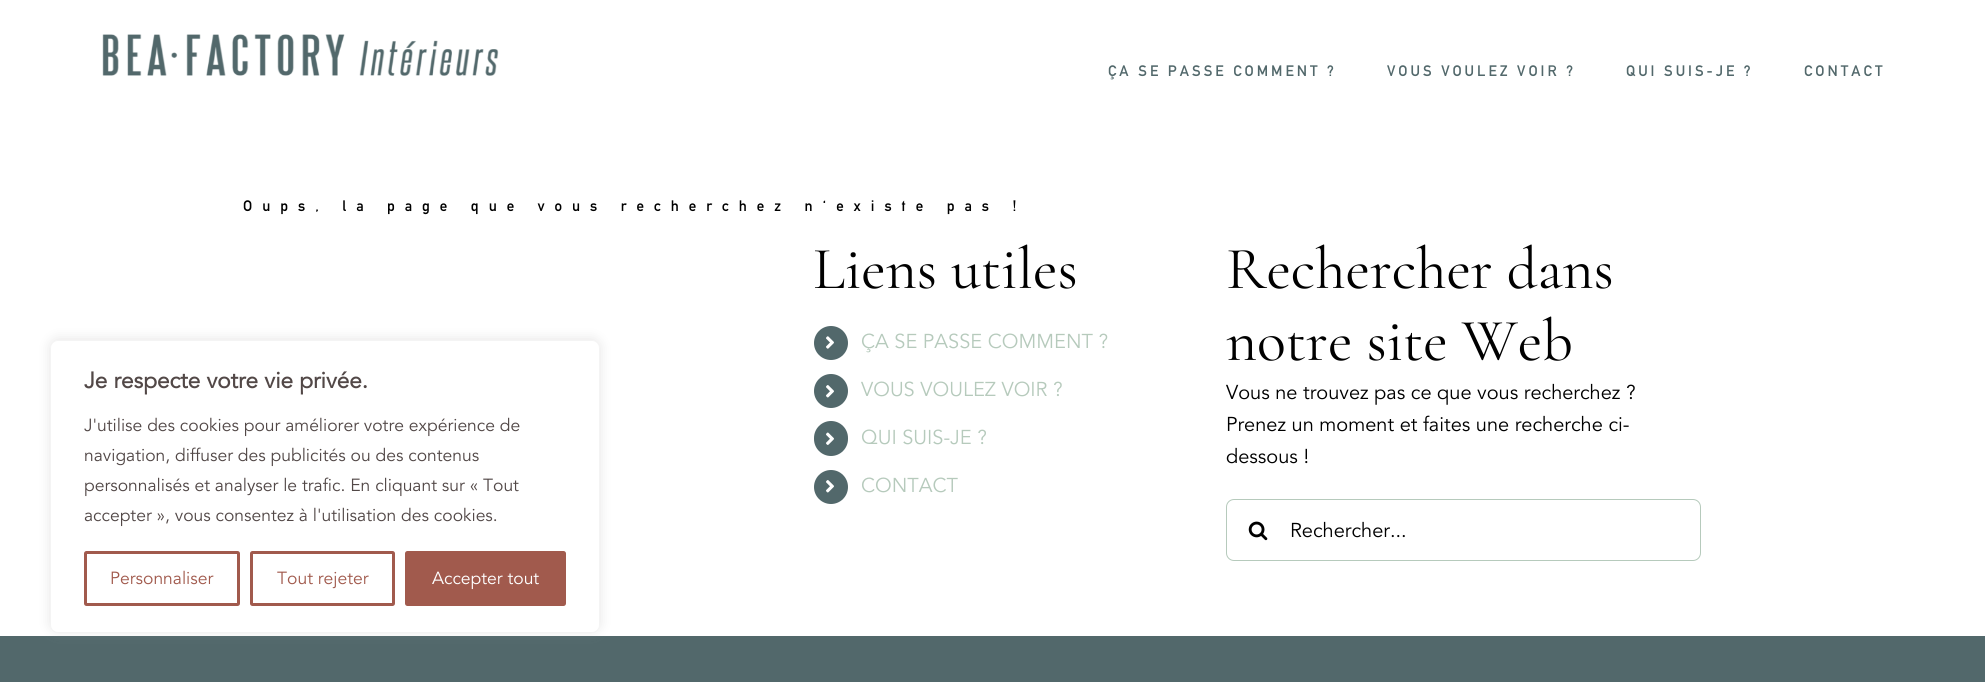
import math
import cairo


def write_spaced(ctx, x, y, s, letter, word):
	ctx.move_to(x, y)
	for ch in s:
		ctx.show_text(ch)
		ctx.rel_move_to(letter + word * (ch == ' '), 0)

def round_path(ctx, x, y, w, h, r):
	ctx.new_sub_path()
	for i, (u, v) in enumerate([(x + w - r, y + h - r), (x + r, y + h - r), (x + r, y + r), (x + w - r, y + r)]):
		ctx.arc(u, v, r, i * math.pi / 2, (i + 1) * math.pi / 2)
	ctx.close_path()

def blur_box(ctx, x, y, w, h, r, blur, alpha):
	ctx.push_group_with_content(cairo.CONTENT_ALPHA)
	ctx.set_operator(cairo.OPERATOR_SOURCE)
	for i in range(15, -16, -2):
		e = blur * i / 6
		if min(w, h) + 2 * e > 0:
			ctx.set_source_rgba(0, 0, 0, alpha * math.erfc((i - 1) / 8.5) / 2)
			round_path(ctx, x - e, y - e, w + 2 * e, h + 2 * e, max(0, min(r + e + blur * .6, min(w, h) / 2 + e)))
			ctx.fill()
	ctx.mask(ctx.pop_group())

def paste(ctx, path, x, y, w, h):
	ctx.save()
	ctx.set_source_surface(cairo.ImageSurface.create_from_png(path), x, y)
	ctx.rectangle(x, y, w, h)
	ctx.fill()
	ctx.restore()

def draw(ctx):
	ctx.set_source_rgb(1, 1, 1)
	ctx.paint()
	paste(ctx, 'media/1.png', 102, 34, 397, 42)
	ctx.select_font_face('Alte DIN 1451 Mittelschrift')
	ctx.set_font_size(15)
	ctx.set_source_rgb(0.322, 0.408, 0.42)
	for x, y, s in [
		(1108, 76, 'ÇA SE PASSE COMMENT ?'),
		(1387, 76, 'VOUS VOULEZ VOIR ?'),
		(1626, 76, 'QUI SUIS-JE ?'),
		(1804, 76, 'CONTACT'),
	]:
		write_spaced(ctx, x, y, s, 3, 0)
	ctx.set_source_rgb(0, 0, 0)
	write_spaced(ctx, 243, 211, 'Oups, la page que vous recherchez n\'existe pas !', 10, 0)
	ctx.select_font_face('Cormorant Garamond')
	ctx.set_font_size(60)
	ctx.move_to(813, 288)
	ctx.show_text('Liens utiles')
	ctx.set_source_rgb(0.322, 0.408, 0.42)
	ctx.new_path()
	ctx.arc(831, 343, 17, 0, 2 * math.pi)
	ctx.fill()
	paste(ctx, 'media/2.png', 826, 336, 8, 13)
	ctx.select_font_face('Avenir')
	ctx.set_font_size(20)
	ctx.set_source_rgb(0.714, 0.792, 0.737)
	ctx.move_to(861, 348)
	ctx.show_text('ÇA SE PASSE COMMENT ?')
	ctx.set_source_rgb(0.322, 0.408, 0.42)
	ctx.new_path()
	ctx.arc(831, 391, 17, 0, 2 * math.pi)
	ctx.fill()
	paste(ctx, 'media/3.png', 826, 385, 8, 13)
	ctx.set_source_rgb(0.714, 0.792, 0.737)
	ctx.move_to(861, 396)
	ctx.show_text('VOUS VOULEZ VOIR ?')
	ctx.set_source_rgb(0.322, 0.408, 0.42)
	round_path(ctx, 814, 421, 34, 35, 17)
	ctx.fill()
	paste(ctx, 'media/4.png', 826, 432, 8, 13)
	ctx.set_source_rgb(0.714, 0.792, 0.737)
	ctx.move_to(861, 444)
	ctx.show_text('QUI SUIS-JE ?')
	ctx.set_source_rgb(0.322, 0.408, 0.42)
	ctx.new_path()
	ctx.arc(831, 487, 17, 0, 2 * math.pi)
	ctx.fill()
	paste(ctx, 'media/3.png', 826, 480, 8, 13)
	ctx.set_source_rgb(0.714, 0.792, 0.737)
	ctx.move_to(861, 492)
	ctx.show_text('CONTACT')
	ctx.select_font_face('Cormorant Garamond')
	ctx.set_font_size(60)
	ctx.set_source_rgb(0, 0, 0)
	ctx.move_to(1226, 288)
	ctx.show_text('Rechercher dans')
	ctx.move_to(1226, 360)
	ctx.show_text('notre site Web')
	ctx.select_font_face('Avenir')
	ctx.set_font_size(20)
	for x, y, s in [
		(1226, 399, 'Vous ne trouvez pas ce que vous recherchez ?'),
		(1226, 431, 'Prenez un moment et faites une recherche ci-'),
		(1226, 463, 'dessous !'),
	]:
		ctx.move_to(x, y)
		ctx.show_text(s)
	round_path(ctx, 1226.5, 499.5, 474, 61, 7.5)
	ctx.set_source_rgb(0.714, 0.792, 0.737)
	ctx.set_line_width(1)
	ctx.stroke()
	paste(ctx, 'media/5.png', 1248, 521, 20, 20)
	ctx.set_source_rgb(0, 0, 0)
	ctx.move_to(1290, 537)
	ctx.show_text('Rechercher...')
	ctx.set_source_rgb(0.322, 0.408, 0.42)
	ctx.rectangle(0, 636, 1985, 46)
	ctx.fill()
	ctx.set_source_rgb(0.675, 0.671, 0.671)
	blur_box(ctx, 50, 339, 550, 292, 8, 6, 0.3)
	ctx.set_source_rgb(1, 1, 1)
	round_path(ctx, 50.5, 340.5, 549, 292, 7.5)
	ctx.fill_preserve()
	ctx.set_source_rgb(0.957, 0.957, 0.957)
	ctx.stroke()
	ctx.select_font_face('Avenir', cairo.FONT_SLANT_NORMAL, cairo.FONT_WEIGHT_BOLD)
	ctx.set_font_size(22.5)
	ctx.set_source_rgb(0.322, 0.282, 0.278)
	ctx.move_to(84, 388)
	ctx.show_text('Je respecte votre vie privée.')
	ctx.select_font_face('Avenir')
	ctx.set_font_size(17.5)
	for x, y, s in [
		(84, 431, 'J\'utilise des cookies pour améliorer votre expérience de'),
		(84, 461, 'navigation, diffuser des publicités ou des contenus'),
		(84, 491, 'personnalisés et analyser le trafic. En cliquant sur « Tout'),
		(84, 521, 'accepter », vous consentez à l\'utilisation des cookies.'),
	]:
		ctx.move_to(x, y)
		ctx.show_text(s)
	round_path(ctx, 85.5, 552.5, 153, 52, 1)
	ctx.set_source_rgb(0.631, 0.353, 0.302)
	ctx.set_line_width(3)
	ctx.stroke()
	ctx.move_to(110, 584)
	ctx.show_text('Personnaliser')
	round_path(ctx, 251.5, 552.5, 142, 52, 1)
	ctx.stroke()
	ctx.move_to(277, 584)
	ctx.show_text('Tout rejeter')
	round_path(ctx, 406.5, 552.5, 158, 52, 1)
	ctx.fill_preserve()
	ctx.stroke()
	ctx.set_source_rgb(1, 1, 1)
	ctx.move_to(432, 584)
	ctx.show_text('Accepter tout')


surface = cairo.ImageSurface(cairo.FORMAT_RGB24, 1985, 682)
ctx = cairo.Context(surface)
options = cairo.FontOptions()
options.set_hint_metrics(cairo.HINT_METRICS_OFF)
options.set_hint_style(cairo.HINT_STYLE_NONE)
ctx.set_font_options(options)
ctx.set_miter_limit(4)
draw(ctx)
surface.write_to_png('image.png')
